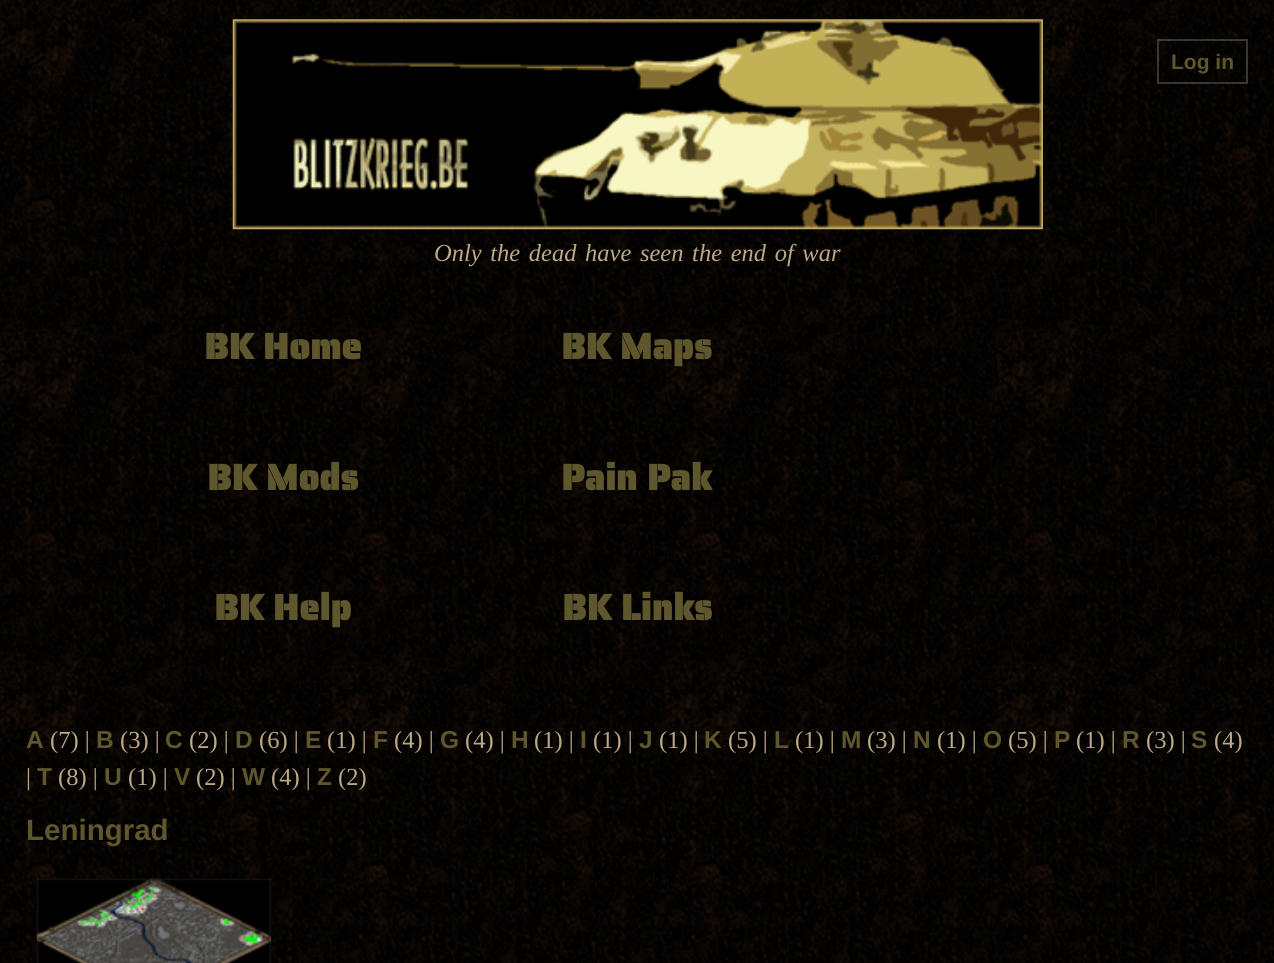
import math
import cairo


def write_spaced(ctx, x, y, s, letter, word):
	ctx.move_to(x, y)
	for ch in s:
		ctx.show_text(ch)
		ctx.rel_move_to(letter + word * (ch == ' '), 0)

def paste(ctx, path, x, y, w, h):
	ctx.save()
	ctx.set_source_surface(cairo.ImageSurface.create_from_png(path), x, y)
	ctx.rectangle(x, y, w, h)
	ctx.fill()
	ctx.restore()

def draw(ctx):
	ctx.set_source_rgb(1, 1, 1)
	ctx.paint()
	paste(ctx, 'media/1.png', 0, 0, 1274, 963)
	paste(ctx, 'media/2.png', 232, 19, 811, 211)
	ctx.rectangle(1158, 40, 89, 43)
	ctx.set_source_rgba(1, 1, 1, 0.2)
	ctx.stroke()
	ctx.select_font_face('Liberation Sans', cairo.FONT_SLANT_NORMAL, cairo.FONT_WEIGHT_BOLD)
	ctx.set_font_size(21)
	ctx.set_source_rgb(0.369, 0.337, 0.173)
	ctx.move_to(1171, 69)
	ctx.show_text('Log in')
	ctx.select_font_face('Liberation Serif', cairo.FONT_SLANT_ITALIC)
	ctx.set_font_size(24.5)
	ctx.set_source_rgb(0.733, 0.663, 0.529)
	write_spaced(ctx, 434, 261, 'Only the dead have seen the end of war', 0, 2.5)
	ctx.select_font_face('Saira Stencil One', cairo.FONT_SLANT_NORMAL, cairo.FONT_WEIGHT_BOLD)
	ctx.set_font_size(36.5)
	ctx.set_source_rgb(0.369, 0.337, 0.173)
	for x, y, s in [
		(204, 359, 'BK Home'),
		(561, 359, 'BK Maps'),
		(207, 490, 'BK Mods'),
		(561, 490, 'Pain Pak'),
		(214, 620, 'BK Help'),
		(562, 620, 'BK Links'),
	]:
		ctx.move_to(x, y)
		ctx.show_text(s)
	ctx.select_font_face('Liberation Sans', cairo.FONT_SLANT_NORMAL, cairo.FONT_WEIGHT_BOLD)
	ctx.set_font_size(24.5)
	ctx.move_to(26, 748)
	ctx.show_text('A')
	ctx.select_font_face('Liberation Serif')
	ctx.set_source_rgb(0.733, 0.663, 0.529)
	ctx.move_to(50, 748)
	ctx.show_text('(7) |')
	ctx.select_font_face('Liberation Sans', cairo.FONT_SLANT_NORMAL, cairo.FONT_WEIGHT_BOLD)
	ctx.set_source_rgb(0.369, 0.337, 0.173)
	ctx.move_to(96, 748)
	ctx.show_text('B')
	ctx.select_font_face('Liberation Serif')
	ctx.set_source_rgb(0.733, 0.663, 0.529)
	ctx.move_to(120, 748)
	ctx.show_text('(3) |')
	ctx.select_font_face('Liberation Sans', cairo.FONT_SLANT_NORMAL, cairo.FONT_WEIGHT_BOLD)
	ctx.set_source_rgb(0.369, 0.337, 0.173)
	ctx.move_to(165, 748)
	ctx.show_text('C')
	ctx.select_font_face('Liberation Serif')
	ctx.set_source_rgb(0.733, 0.663, 0.529)
	ctx.move_to(189, 748)
	ctx.show_text('(2) |')
	ctx.select_font_face('Liberation Sans', cairo.FONT_SLANT_NORMAL, cairo.FONT_WEIGHT_BOLD)
	ctx.set_source_rgb(0.369, 0.337, 0.173)
	ctx.move_to(235, 748)
	ctx.show_text('D')
	ctx.select_font_face('Liberation Serif')
	ctx.set_source_rgb(0.733, 0.663, 0.529)
	ctx.move_to(259, 748)
	ctx.show_text('(6) |')
	ctx.select_font_face('Liberation Sans', cairo.FONT_SLANT_NORMAL, cairo.FONT_WEIGHT_BOLD)
	ctx.set_source_rgb(0.369, 0.337, 0.173)
	ctx.move_to(305, 748)
	ctx.show_text('E')
	ctx.select_font_face('Liberation Serif')
	ctx.set_source_rgb(0.733, 0.663, 0.529)
	ctx.move_to(327, 748)
	ctx.show_text('(1) |')
	ctx.select_font_face('Liberation Sans', cairo.FONT_SLANT_NORMAL, cairo.FONT_WEIGHT_BOLD)
	ctx.set_source_rgb(0.369, 0.337, 0.173)
	ctx.move_to(373, 748)
	ctx.show_text('F')
	ctx.select_font_face('Liberation Serif')
	ctx.set_source_rgb(0.733, 0.663, 0.529)
	ctx.move_to(394, 748)
	ctx.show_text('(4) |')
	ctx.select_font_face('Liberation Sans', cairo.FONT_SLANT_NORMAL, cairo.FONT_WEIGHT_BOLD)
	ctx.set_source_rgb(0.369, 0.337, 0.173)
	ctx.move_to(440, 748)
	ctx.show_text('G')
	ctx.select_font_face('Liberation Serif')
	ctx.set_source_rgb(0.733, 0.663, 0.529)
	ctx.move_to(465, 748)
	ctx.show_text('(4) |')
	ctx.select_font_face('Liberation Sans', cairo.FONT_SLANT_NORMAL, cairo.FONT_WEIGHT_BOLD)
	ctx.set_source_rgb(0.369, 0.337, 0.173)
	ctx.move_to(511, 748)
	ctx.show_text('H')
	ctx.select_font_face('Liberation Serif')
	ctx.set_source_rgb(0.733, 0.663, 0.529)
	ctx.move_to(534, 748)
	ctx.show_text('(1) |')
	ctx.select_font_face('Liberation Sans', cairo.FONT_SLANT_NORMAL, cairo.FONT_WEIGHT_BOLD)
	ctx.set_source_rgb(0.369, 0.337, 0.173)
	ctx.move_to(580, 748)
	ctx.show_text('I')
	ctx.select_font_face('Liberation Serif')
	ctx.set_source_rgb(0.733, 0.663, 0.529)
	ctx.move_to(593, 748)
	ctx.show_text('(1) |')
	ctx.select_font_face('Liberation Sans', cairo.FONT_SLANT_NORMAL, cairo.FONT_WEIGHT_BOLD)
	ctx.set_source_rgb(0.369, 0.337, 0.173)
	ctx.move_to(639, 748)
	ctx.show_text('J')
	ctx.select_font_face('Liberation Serif')
	ctx.set_source_rgb(0.733, 0.663, 0.529)
	ctx.move_to(659, 748)
	ctx.show_text('(1) |')
	ctx.select_font_face('Liberation Sans', cairo.FONT_SLANT_NORMAL, cairo.FONT_WEIGHT_BOLD)
	ctx.set_source_rgb(0.369, 0.337, 0.173)
	ctx.move_to(704, 748)
	ctx.show_text('K')
	ctx.select_font_face('Liberation Serif')
	ctx.set_source_rgb(0.733, 0.663, 0.529)
	ctx.move_to(728, 748)
	ctx.show_text('(5) |')
	ctx.select_font_face('Liberation Sans', cairo.FONT_SLANT_NORMAL, cairo.FONT_WEIGHT_BOLD)
	ctx.set_source_rgb(0.369, 0.337, 0.173)
	ctx.move_to(774, 748)
	ctx.show_text('L')
	ctx.select_font_face('Liberation Serif')
	ctx.set_source_rgb(0.733, 0.663, 0.529)
	ctx.move_to(795, 748)
	ctx.show_text('(1) |')
	ctx.select_font_face('Liberation Sans', cairo.FONT_SLANT_NORMAL, cairo.FONT_WEIGHT_BOLD)
	ctx.set_source_rgb(0.369, 0.337, 0.173)
	ctx.move_to(841, 748)
	ctx.show_text('M')
	ctx.select_font_face('Liberation Serif')
	ctx.set_source_rgb(0.733, 0.663, 0.529)
	ctx.move_to(867, 748)
	ctx.show_text('(3) |')
	ctx.select_font_face('Liberation Sans', cairo.FONT_SLANT_NORMAL, cairo.FONT_WEIGHT_BOLD)
	ctx.set_source_rgb(0.369, 0.337, 0.173)
	ctx.move_to(913, 748)
	ctx.show_text('N')
	ctx.select_font_face('Liberation Serif')
	ctx.set_source_rgb(0.733, 0.663, 0.529)
	ctx.move_to(937, 748)
	ctx.show_text('(1) |')
	ctx.select_font_face('Liberation Sans', cairo.FONT_SLANT_NORMAL, cairo.FONT_WEIGHT_BOLD)
	ctx.set_source_rgb(0.369, 0.337, 0.173)
	ctx.move_to(983, 748)
	ctx.show_text('O')
	ctx.select_font_face('Liberation Serif')
	ctx.set_source_rgb(0.733, 0.663, 0.529)
	ctx.move_to(1008, 748)
	ctx.show_text('(5) |')
	ctx.select_font_face('Liberation Sans', cairo.FONT_SLANT_NORMAL, cairo.FONT_WEIGHT_BOLD)
	ctx.set_source_rgb(0.369, 0.337, 0.173)
	ctx.move_to(1054, 748)
	ctx.show_text('P')
	ctx.select_font_face('Liberation Serif')
	ctx.set_source_rgb(0.733, 0.663, 0.529)
	ctx.move_to(1076, 748)
	ctx.show_text('(1) |')
	ctx.select_font_face('Liberation Sans', cairo.FONT_SLANT_NORMAL, cairo.FONT_WEIGHT_BOLD)
	ctx.set_source_rgb(0.369, 0.337, 0.173)
	ctx.move_to(1122, 748)
	ctx.show_text('R')
	ctx.select_font_face('Liberation Serif')
	ctx.set_source_rgb(0.733, 0.663, 0.529)
	ctx.move_to(1146, 748)
	ctx.show_text('(3) |')
	ctx.select_font_face('Liberation Sans', cairo.FONT_SLANT_NORMAL, cairo.FONT_WEIGHT_BOLD)
	ctx.set_source_rgb(0.369, 0.337, 0.173)
	ctx.move_to(1191, 748)
	ctx.show_text('S')
	ctx.select_font_face('Liberation Serif')
	ctx.set_source_rgb(0.733, 0.663, 0.529)
	ctx.move_to(1214, 748)
	ctx.show_text('(4)')
	ctx.move_to(26, 785)
	ctx.show_text('|')
	ctx.select_font_face('Liberation Sans', cairo.FONT_SLANT_NORMAL, cairo.FONT_WEIGHT_BOLD)
	ctx.set_source_rgb(0.369, 0.337, 0.173)
	ctx.move_to(37, 785)
	ctx.show_text('T')
	ctx.select_font_face('Liberation Serif')
	ctx.set_source_rgb(0.733, 0.663, 0.529)
	ctx.move_to(58, 785)
	ctx.show_text('(8) |')
	ctx.select_font_face('Liberation Sans', cairo.FONT_SLANT_NORMAL, cairo.FONT_WEIGHT_BOLD)
	ctx.set_source_rgb(0.369, 0.337, 0.173)
	ctx.move_to(104, 785)
	ctx.show_text('U')
	ctx.select_font_face('Liberation Serif')
	ctx.set_source_rgb(0.733, 0.663, 0.529)
	ctx.move_to(128, 785)
	ctx.show_text('(1) |')
	ctx.select_font_face('Liberation Sans', cairo.FONT_SLANT_NORMAL, cairo.FONT_WEIGHT_BOLD)
	ctx.set_source_rgb(0.369, 0.337, 0.173)
	ctx.move_to(174, 785)
	ctx.show_text('V')
	ctx.select_font_face('Liberation Serif')
	ctx.set_source_rgb(0.733, 0.663, 0.529)
	ctx.move_to(196, 785)
	ctx.show_text('(2) |')
	ctx.select_font_face('Liberation Sans', cairo.FONT_SLANT_NORMAL, cairo.FONT_WEIGHT_BOLD)
	ctx.set_source_rgb(0.369, 0.337, 0.173)
	ctx.move_to(242, 785)
	ctx.show_text('W')
	ctx.select_font_face('Liberation Serif')
	ctx.set_source_rgb(0.733, 0.663, 0.529)
	ctx.move_to(271, 785)
	ctx.show_text('(4) |')
	ctx.select_font_face('Liberation Sans', cairo.FONT_SLANT_NORMAL, cairo.FONT_WEIGHT_BOLD)
	ctx.set_source_rgb(0.369, 0.337, 0.173)
	ctx.move_to(317, 785)
	ctx.show_text('Z')
	ctx.select_font_face('Liberation Serif')
	ctx.set_source_rgb(0.733, 0.663, 0.529)
	ctx.move_to(338, 785)
	ctx.show_text('(2)')
	ctx.select_font_face('Liberation Sans', cairo.FONT_SLANT_NORMAL, cairo.FONT_WEIGHT_BOLD)
	ctx.set_font_size(29.5)
	ctx.set_source_rgb(0.369, 0.337, 0.173)
	ctx.move_to(26, 840)
	ctx.show_text('Leningrad')
	paste(ctx, 'media/3.png', 36, 878, 236, 85)


surface = cairo.ImageSurface(cairo.FORMAT_RGB24, 1274, 963)
ctx = cairo.Context(surface)
options = cairo.FontOptions()
options.set_hint_metrics(cairo.HINT_METRICS_OFF)
options.set_hint_style(cairo.HINT_STYLE_NONE)
ctx.set_font_options(options)
ctx.set_miter_limit(4)
draw(ctx)
surface.write_to_png('image.png')
